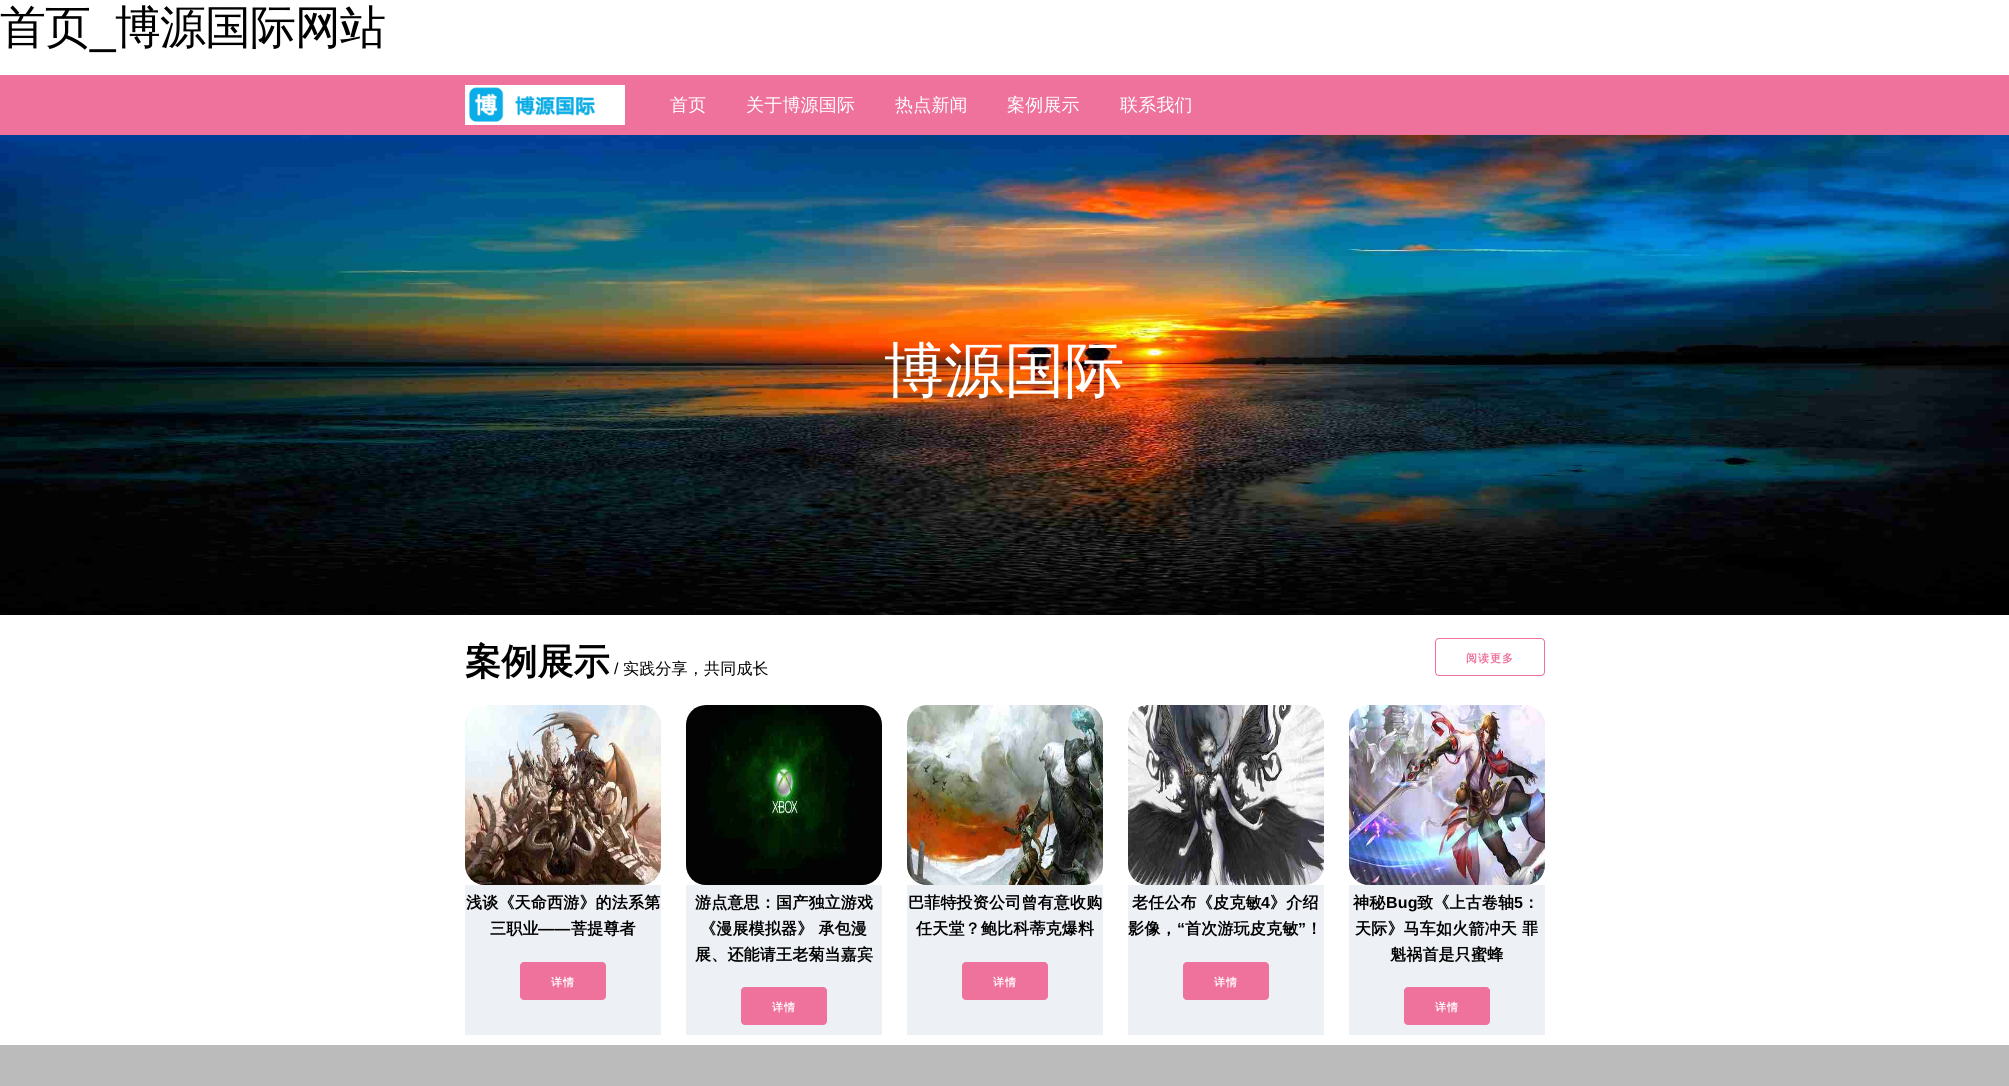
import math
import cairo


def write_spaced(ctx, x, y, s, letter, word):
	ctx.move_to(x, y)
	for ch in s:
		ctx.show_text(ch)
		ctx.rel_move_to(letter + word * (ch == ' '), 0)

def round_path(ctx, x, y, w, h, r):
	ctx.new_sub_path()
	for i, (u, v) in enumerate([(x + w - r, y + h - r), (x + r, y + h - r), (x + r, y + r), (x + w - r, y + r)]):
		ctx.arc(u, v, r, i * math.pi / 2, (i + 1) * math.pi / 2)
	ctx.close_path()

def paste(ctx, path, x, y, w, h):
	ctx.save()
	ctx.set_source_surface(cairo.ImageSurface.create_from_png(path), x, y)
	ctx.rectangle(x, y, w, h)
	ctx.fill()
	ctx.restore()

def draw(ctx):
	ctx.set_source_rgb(1, 1, 1)
	ctx.paint()
	ctx.select_font_face('WenQuanYi Zen Hei Medium')
	ctx.set_font_size(46)
	ctx.set_source_rgb(0, 0, 0)
	write_spaced(ctx, 0, 43, '首页', -1, 0)
	write_spaced(ctx, 115, 43, '博源国际网站', -1, 0)
	ctx.select_font_face('Liberation Sans')
	write_spaced(ctx, 90, 43, '_', -1, 0)
	ctx.set_source_rgb(0.933, 0.447, 0.612)
	ctx.rectangle(0, 75, 2009, 60)
	ctx.fill()
	paste(ctx, 'media/1.png', 465, 85, 160, 40)
	ctx.select_font_face('WenQuanYi Zen Hei Medium')
	ctx.set_font_size(18)
	ctx.set_source_rgb(1, 1, 1)
	for x, y, s in [
		(670, 111, '首页'),
		(746, 111, '关于博源国际'),
		(895, 111, '热点新闻'),
		(1007, 111, '案例展示'),
		(1120, 111, '联系我们'),
	]:
		write_spaced(ctx, x, y, s, 0.2, 0)
	paste(ctx, 'media/2.png', 0, 135, 2009, 480)
	ctx.set_font_size(60)
	write_spaced(ctx, 884, 391, '博源国际', 0.2, 0)
	ctx.select_font_face('WenQuanYi Zen Hei', cairo.FONT_SLANT_NORMAL, cairo.FONT_WEIGHT_BOLD)
	ctx.set_font_size(36)
	ctx.set_source_rgb(0, 0, 0)
	write_spaced(ctx, 465, 674, '案例展示', 0.2, 0)
	ctx.select_font_face('Liberation Sans')
	ctx.set_font_size(16)
	write_spaced(ctx, 614, 674, '/', 0.2, 0)
	ctx.select_font_face('WenQuanYi Zen Hei Medium')
	write_spaced(ctx, 623, 674, '实践分享，共同成长', 0.2, 0)
	round_path(ctx, 1435.5, 638.5, 109, 37, 3.5)
	ctx.set_source_rgb(0.933, 0.447, 0.612)
	ctx.set_line_width(1)
	ctx.stroke()
	ctx.select_font_face('WenQuanYi Zen Hei', cairo.FONT_SLANT_NORMAL, cairo.FONT_WEIGHT_BOLD)
	ctx.set_font_size(11)
	write_spaced(ctx, 1466, 662, '阅读更多', 1, 0)
	paste(ctx, 'media/3.png', 465, 705, 196, 180)
	ctx.set_source_rgb(0.929, 0.941, 0.957)
	ctx.rectangle(465, 885, 196, 150)
	ctx.fill()
	ctx.set_font_size(16)
	ctx.set_source_rgb(0, 0, 0)
	write_spaced(ctx, 466, 908, '浅谈《天命西游》的法系第', 0.2, 0)
	write_spaced(ctx, 490, 934, '三职业', 0.2, 0)
	ctx.select_font_face('Liberation Sans', cairo.FONT_SLANT_NORMAL, cairo.FONT_WEIGHT_BOLD)
	write_spaced(ctx, 538, 934, '——', 0.2, 0)
	ctx.select_font_face('WenQuanYi Zen Hei', cairo.FONT_SLANT_NORMAL, cairo.FONT_WEIGHT_BOLD)
	write_spaced(ctx, 571, 934, '菩提尊者', 0.2, 0)
	ctx.set_source_rgb(0.933, 0.447, 0.612)
	round_path(ctx, 520.5, 962.5, 85, 37, 3.5)
	ctx.fill_preserve()
	ctx.stroke()
	ctx.set_font_size(11)
	ctx.set_source_rgb(1, 1, 1)
	write_spaced(ctx, 551, 986, '详情', 1, 0)
	paste(ctx, 'media/4.png', 686, 705, 196, 180)
	ctx.set_source_rgb(0.929, 0.941, 0.957)
	ctx.rectangle(686, 885, 196, 150)
	ctx.fill()
	ctx.set_font_size(16)
	ctx.set_source_rgb(0, 0, 0)
	for x, y, s in [
		(695, 908, '游点意思：国产独立游戏'),
		(700, 934, '《漫展模拟器》 承包漫'),
		(695, 960, '展、还能请王老菊当嘉宾'),
	]:
		write_spaced(ctx, x, y, s, 0.2, 0)
	ctx.set_source_rgb(0.933, 0.447, 0.612)
	round_path(ctx, 741.5, 987.5, 85, 37, 3.5)
	ctx.fill_preserve()
	ctx.stroke()
	ctx.set_font_size(11)
	ctx.set_source_rgb(1, 1, 1)
	write_spaced(ctx, 772, 1011, '详情', 1, 0)
	paste(ctx, 'media/5.png', 907, 705, 196, 180)
	ctx.set_source_rgb(0.929, 0.941, 0.957)
	ctx.rectangle(907, 885, 196, 150)
	ctx.fill()
	ctx.set_font_size(16)
	ctx.set_source_rgb(0, 0, 0)
	write_spaced(ctx, 908, 908, '巴菲特投资公司曾有意收购', 0.2, 0)
	write_spaced(ctx, 916, 934, '任天堂？鲍比科蒂克爆料', 0.2, 0)
	ctx.set_source_rgb(0.933, 0.447, 0.612)
	round_path(ctx, 962.5, 962.5, 85, 37, 3.5)
	ctx.fill_preserve()
	ctx.stroke()
	ctx.set_font_size(11)
	ctx.set_source_rgb(1, 1, 1)
	write_spaced(ctx, 993, 986, '详情', 1, 0)
	paste(ctx, 'media/6.png', 1128, 705, 196, 180)
	ctx.set_source_rgb(0.929, 0.941, 0.957)
	ctx.rectangle(1128, 885, 196, 150)
	ctx.fill()
	ctx.set_font_size(16)
	ctx.set_source_rgb(0, 0, 0)
	write_spaced(ctx, 1132, 908, '老任公布《皮克敏', 0.2, 0)
	ctx.select_font_face('Liberation Sans', cairo.FONT_SLANT_NORMAL, cairo.FONT_WEIGHT_BOLD)
	write_spaced(ctx, 1261, 908, '4', 0.2, 0)
	ctx.select_font_face('WenQuanYi Zen Hei', cairo.FONT_SLANT_NORMAL, cairo.FONT_WEIGHT_BOLD)
	write_spaced(ctx, 1270, 908, '》介绍', 0.2, 0)
	write_spaced(ctx, 1128, 934, '影像，', 0.2, 0)
	ctx.select_font_face('Liberation Sans', cairo.FONT_SLANT_NORMAL, cairo.FONT_WEIGHT_BOLD)
	write_spaced(ctx, 1177, 934, '“', 0.2, 0)
	ctx.select_font_face('WenQuanYi Zen Hei', cairo.FONT_SLANT_NORMAL, cairo.FONT_WEIGHT_BOLD)
	write_spaced(ctx, 1185, 934, '首次游玩皮克敏', 0.2, 0)
	ctx.select_font_face('Liberation Sans', cairo.FONT_SLANT_NORMAL, cairo.FONT_WEIGHT_BOLD)
	write_spaced(ctx, 1298, 934, '”', 0.2, 0)
	ctx.select_font_face('WenQuanYi Zen Hei', cairo.FONT_SLANT_NORMAL, cairo.FONT_WEIGHT_BOLD)
	write_spaced(ctx, 1306, 934, '！', 0.2, 0)
	ctx.set_source_rgb(0.933, 0.447, 0.612)
	round_path(ctx, 1183.5, 962.5, 85, 37, 3.5)
	ctx.fill_preserve()
	ctx.stroke()
	ctx.set_font_size(11)
	ctx.set_source_rgb(1, 1, 1)
	write_spaced(ctx, 1214, 986, '详情', 1, 0)
	paste(ctx, 'media/7.png', 1349, 705, 196, 180)
	ctx.set_source_rgb(0.929, 0.941, 0.957)
	ctx.rectangle(1349, 885, 196, 150)
	ctx.fill()
	ctx.set_font_size(16)
	ctx.set_source_rgb(0, 0, 0)
	write_spaced(ctx, 1353, 908, '神秘', 0.2, 0)
	ctx.select_font_face('Liberation Sans', cairo.FONT_SLANT_NORMAL, cairo.FONT_WEIGHT_BOLD)
	write_spaced(ctx, 1386, 908, 'Bug', 0.2, 0)
	ctx.select_font_face('WenQuanYi Zen Hei', cairo.FONT_SLANT_NORMAL, cairo.FONT_WEIGHT_BOLD)
	write_spaced(ctx, 1417, 908, '致《上古卷轴', 0.2, 0)
	ctx.select_font_face('Liberation Sans', cairo.FONT_SLANT_NORMAL, cairo.FONT_WEIGHT_BOLD)
	write_spaced(ctx, 1514, 908, '5', 0.2, 0)
	ctx.select_font_face('WenQuanYi Zen Hei', cairo.FONT_SLANT_NORMAL, cairo.FONT_WEIGHT_BOLD)
	for x, y, s in [
		(1523, 908, '：'),
		(1355, 934, '天际》马车如火箭冲天 罪'),
		(1390, 960, '魁祸首是只蜜蜂'),
	]:
		write_spaced(ctx, x, y, s, 0.2, 0)
	ctx.set_source_rgb(0.933, 0.447, 0.612)
	round_path(ctx, 1404.5, 987.5, 85, 37, 3.5)
	ctx.fill_preserve()
	ctx.stroke()
	ctx.set_font_size(11)
	ctx.set_source_rgb(1, 1, 1)
	write_spaced(ctx, 1435, 1011, '详情', 1, 0)
	ctx.set_source_rgb(0.733, 0.733, 0.733)
	ctx.rectangle(0, 1045, 2009, 41)
	ctx.fill()


surface = cairo.ImageSurface(cairo.FORMAT_RGB24, 2009, 1086)
ctx = cairo.Context(surface)
options = cairo.FontOptions()
options.set_hint_metrics(cairo.HINT_METRICS_OFF)
options.set_hint_style(cairo.HINT_STYLE_NONE)
ctx.set_font_options(options)
ctx.set_miter_limit(4)
draw(ctx)
surface.write_to_png('image.png')
